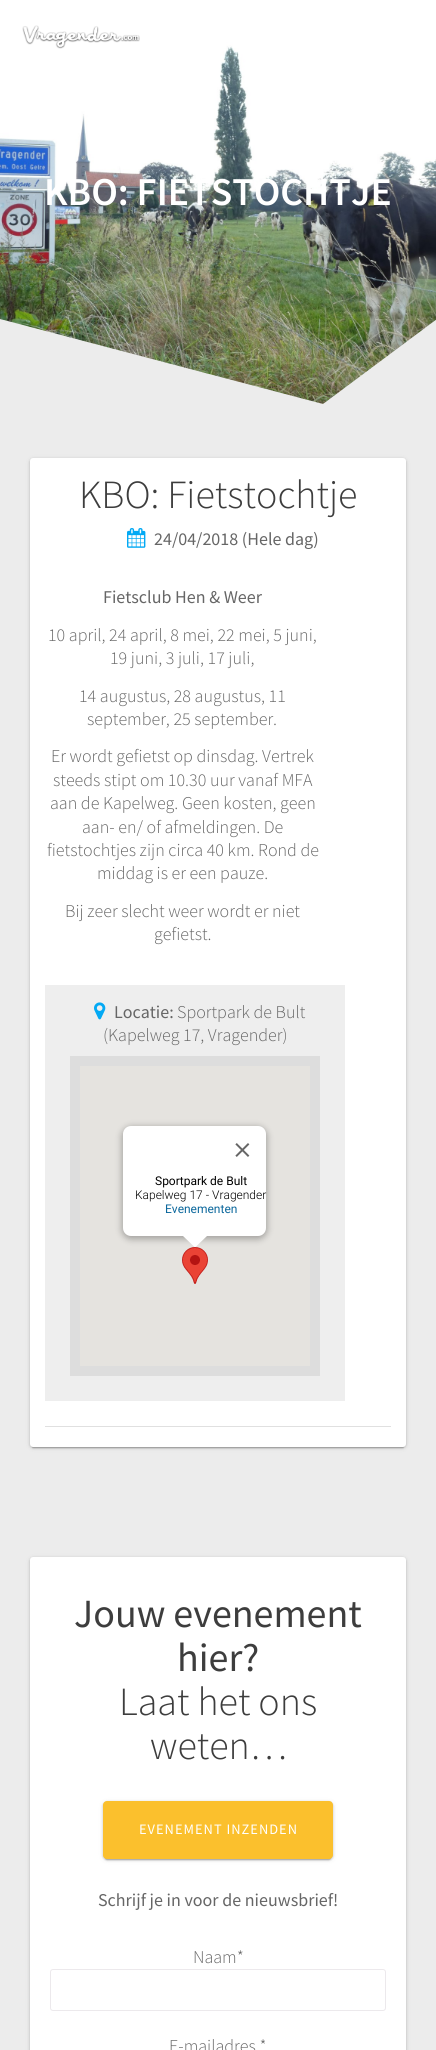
import math
import cairo


def write_spaced(ctx, x, y, s, letter, word):
	ctx.move_to(x, y)
	for ch in s:
		ctx.show_text(ch)
		ctx.rel_move_to(letter + word * (ch == ' '), 0)

def round_path(ctx, x, y, w, h, r):
	ctx.new_sub_path()
	for i, (u, v) in enumerate([(x + w - r, y + h - r), (x + r, y + h - r), (x + r, y + r), (x + w - r, y + r)]):
		ctx.arc(u, v, r, i * math.pi / 2, (i + 1) * math.pi / 2)
	ctx.close_path()

def blur_box(ctx, x, y, w, h, r, blur, alpha):
	ctx.push_group_with_content(cairo.CONTENT_ALPHA)
	ctx.set_operator(cairo.OPERATOR_SOURCE)
	for i in range(15, -16, -2):
		e = blur * i / 6
		if min(w, h) + 2 * e > 0:
			ctx.set_source_rgba(0, 0, 0, alpha * math.erfc((i - 1) / 8.5) / 2)
			round_path(ctx, x - e, y - e, w + 2 * e, h + 2 * e, max(0, min(r + e + blur * .6, min(w, h) / 2 + e)))
			ctx.fill()
	ctx.mask(ctx.pop_group())

def paste(ctx, path, x, y, w, h):
	ctx.save()
	ctx.set_source_surface(cairo.ImageSurface.create_from_png(path), x, y)
	ctx.rectangle(x, y, w, h)
	ctx.fill()
	ctx.restore()

def draw(ctx):
	ctx.set_source_rgb(0.922, 0.922, 0.922)
	ctx.paint()
	paste(ctx, 'media/2.png', 0, 0, 436, 404)
	paste(ctx, 'media/1.png', 22, 25, 118, 24)
	ctx.select_font_face('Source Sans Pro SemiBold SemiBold')
	ctx.set_font_size(39.5)
	ctx.set_source_rgb(1, 1, 1)
	ctx.move_to(44, 205)
	ctx.show_text('KBO: FIETSTOCHTJE')
	ctx.set_source_rgb(0.922, 0.922, 0.922)
	ctx.new_path()
	ctx.move_to(323, 404)
	ctx.line_to(0, 319)
	ctx.line_to(0, 409)
	ctx.line_to(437, 409)
	ctx.line_to(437, 319)
	ctx.close_path()
	ctx.fill()
	ctx.set_source_rgb(0, 0, 0)
	blur_box(ctx, 30, 459, 376, 989, 3, 2.5, 0.12)
	blur_box(ctx, 32, 463, 372, 985, 1, 0.5, 0.2)
	blur_box(ctx, 30, 459, 376, 989, 3, 1, 0.14)
	ctx.set_source_rgb(1, 1, 1)
	round_path(ctx, 30, 458, 376, 989, 3)
	ctx.fill()
	ctx.select_font_face('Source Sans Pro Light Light')
	ctx.set_font_size(40)
	ctx.set_source_rgb(0.239, 0.239, 0.239)
	ctx.move_to(79, 508)
	ctx.show_text('KBO: Fietstochtje')
	paste(ctx, 'media/3.png', 127, 528, 19, 20)
	ctx.select_font_face('Source Sans Pro')
	ctx.set_font_size(18)
	ctx.set_source_rgb(0.4, 0.4, 0.4)
	ctx.move_to(154, 545)
	ctx.show_text('24/04/2018 (Hele dag)')
	ctx.set_source_rgb(0.878, 0.878, 0.878)
	ctx.rectangle(45, 1426, 346, 1)
	ctx.fill()
	ctx.set_source_rgb(0.4, 0.4, 0.4)
	ctx.move_to(103, 603)
	ctx.show_text('Fietsclub Hen & Weer')
	ctx.select_font_face('Source Sans Pro Light Light')
	for x, y, s in [
		(48, 641, '10 april, 24 april, 8 mei, 22 mei, 5 juni,'),
		(110, 664, '19 juni, 3 juli, 17 juli,'),
		(79, 702, '14 augustus, 28 augustus, 11'),
		(87, 725, 'september, 25 september.'),
		(51, 762, 'Er wordt gefietst op dinsdag. Vertrek'),
		(53, 786, 'steeds stipt om 10.30 uur vanaf MFA'),
		(50, 809, 'aan de Kapelweg. Geen kosten, geen'),
		(82, 833, 'aan- en/ of afmeldingen. De'),
		(47, 856, 'fietstochtjes zijn circa 40 km. Rond de'),
		(97, 879, 'middag is er een pauze.'),
		(65, 917, 'Bij zeer slecht weer wordt er niet'),
		(154, 940, 'gefietst.'),
	]:
		ctx.move_to(x, y)
		ctx.show_text(s)
	ctx.set_source_rgb(0.933, 0.933, 0.933)
	ctx.rectangle(45, 985, 300, 416)
	ctx.fill()
	paste(ctx, 'media/4.png', 94, 1002, 12, 18)
	ctx.select_font_face('Source Sans Pro')
	ctx.set_source_rgb(0.4, 0.4, 0.4)
	ctx.move_to(114, 1018)
	ctx.show_text('Locatie:')
	ctx.select_font_face('Source Sans Pro Light Light')
	ctx.move_to(177, 1018)
	ctx.show_text('Sportpark de Bult')
	ctx.move_to(103, 1041)
	ctx.show_text('(Kapelweg 17, Vragender)')
	ctx.set_source_rgb(0.867, 0.867, 0.867)
	ctx.rectangle(70, 1056, 250, 320)
	ctx.fill()
	ctx.set_source_rgb(0.898, 0.89, 0.875)
	ctx.rectangle(80, 1066, 230, 300)
	ctx.fill()
	paste(ctx, 'media/6.png', 182, 1247, 26, 37)
	ctx.set_source_rgb(0, 0, 0)
	blur_box(ctx, 122, 1127, 145, 112, 9, 3.5, 0.3)
	ctx.set_source_rgb(1, 1, 1)
	round_path(ctx, 123, 1126, 143, 110, 8)
	ctx.fill()
	paste(ctx, 'media/5.png', 235, 1143, 15, 14)
	ctx.select_font_face('Roboto')
	ctx.set_font_size(12)
	ctx.set_source_rgb(0, 0, 0)
	ctx.move_to(155, 1185)
	ctx.show_text('Sportpark de Bult')
	ctx.select_font_face('Roboto Light')
	ctx.move_to(135, 1199)
	ctx.show_text('Kapelweg 17 - Vragender')
	ctx.select_font_face('Roboto')
	ctx.set_source_rgb(0.043, 0.404, 0.612)
	ctx.move_to(165, 1213)
	ctx.show_text('Evenementen')
	ctx.set_source_rgb(1, 1, 1)
	ctx.new_path()
	ctx.move_to(183, 1236)
	ctx.line_to(183, 1235.5)
	ctx.line_to(207.5, 1235.5)
	ctx.line_to(195.5, 1247)
	ctx.line_to(194.5, 1247)
	ctx.close_path()
	ctx.fill()
	ctx.set_source_rgb(0, 0, 0)
	blur_box(ctx, 30, 1558, 376, 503, 3, 2.5, 0.12)
	blur_box(ctx, 30, 1558, 376, 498, 3, 1, 0.14)
	ctx.set_source_rgb(1, 1, 1)
	round_path(ctx, 30, 1557, 376, 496, 3)
	ctx.fill()
	ctx.select_font_face('Source Sans Pro')
	ctx.set_font_size(40)
	ctx.set_source_rgb(0.239, 0.239, 0.239)
	ctx.move_to(74, 1627)
	ctx.show_text('Jouw evenement')
	ctx.move_to(177, 1671)
	ctx.show_text('hier?')
	ctx.select_font_face('Source Sans Pro Light Light')
	ctx.move_to(119, 1715)
	ctx.show_text('Laat het ons')
	ctx.move_to(150, 1759)
	ctx.show_text('weten…')
	ctx.set_source_rgb(0, 0, 0)
	blur_box(ctx, 103, 1802, 230, 58, 4, 2.5, 0.12)
	blur_box(ctx, 105, 1806, 226, 54, 2, 0.5, 0.2)
	blur_box(ctx, 103, 1802, 230, 58, 4, 1, 0.14)
	ctx.set_source_rgb(0.984, 0.753, 0.176)
	round_path(ctx, 103, 1801, 230, 58, 4)
	ctx.fill()
	ctx.select_font_face('Source Sans Pro')
	ctx.set_font_size(14.4)
	ctx.set_source_rgb(1, 1, 1)
	write_spaced(ctx, 139, 1834, 'EVENEMENT INZENDEN', 1, 0)
	ctx.set_font_size(18)
	ctx.set_source_rgb(0.4, 0.4, 0.4)
	ctx.move_to(98, 1906)
	ctx.show_text('Schrijf je in voor de nieuwsbrief!')
	ctx.select_font_face('Source Sans Pro Light Light')
	ctx.move_to(193, 1963)
	ctx.show_text('Naam*')
	round_path(ctx, 50.5, 1969.5, 335, 41, 2.5)
	ctx.set_source_rgb(0.922, 0.914, 0.922)
	ctx.set_line_width(1)
	ctx.stroke()
	ctx.set_source_rgb(0.4, 0.4, 0.4)
	ctx.move_to(169, 2052)
	ctx.show_text('E-mailadres *')


surface = cairo.ImageSurface(cairo.FORMAT_RGB24, 436, 2050)
ctx = cairo.Context(surface)
options = cairo.FontOptions()
options.set_hint_metrics(cairo.HINT_METRICS_OFF)
options.set_hint_style(cairo.HINT_STYLE_NONE)
ctx.set_font_options(options)
ctx.set_miter_limit(4)
draw(ctx)
surface.write_to_png('image.png')
